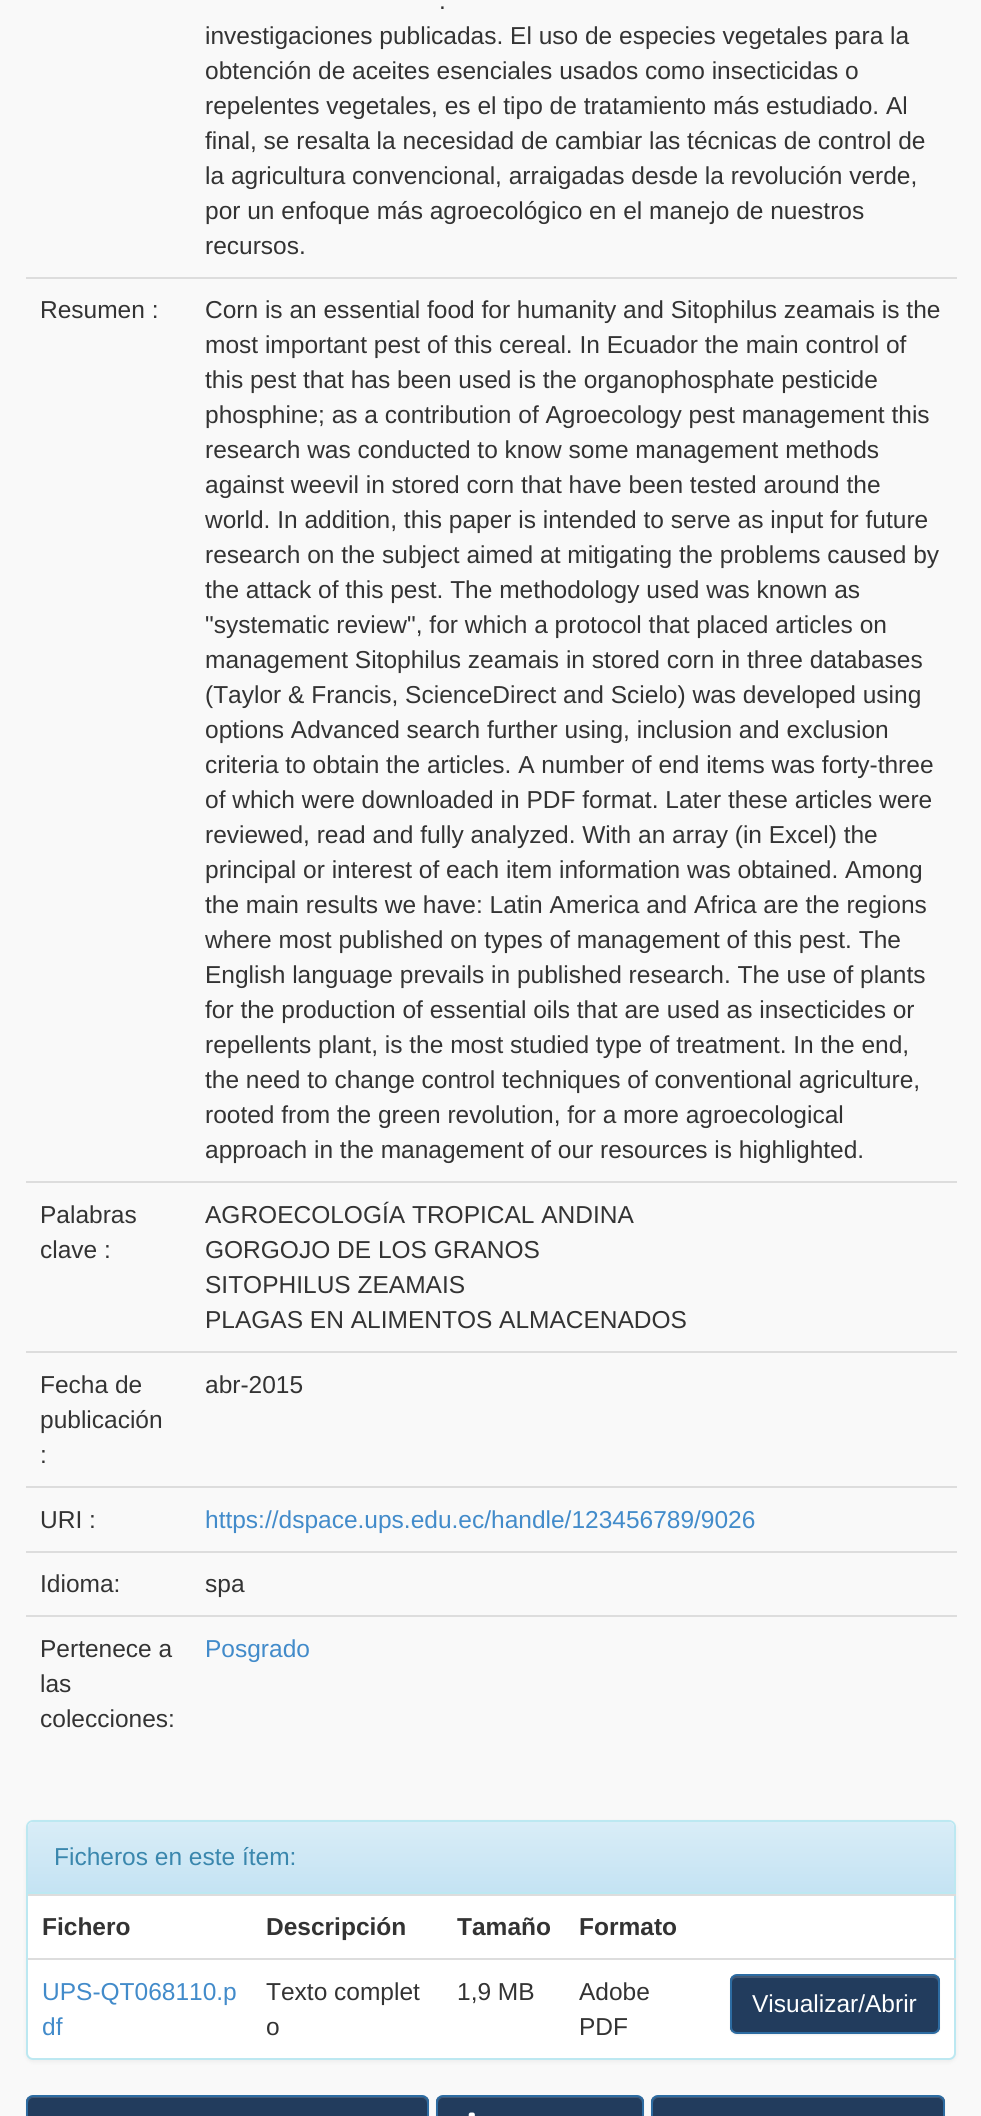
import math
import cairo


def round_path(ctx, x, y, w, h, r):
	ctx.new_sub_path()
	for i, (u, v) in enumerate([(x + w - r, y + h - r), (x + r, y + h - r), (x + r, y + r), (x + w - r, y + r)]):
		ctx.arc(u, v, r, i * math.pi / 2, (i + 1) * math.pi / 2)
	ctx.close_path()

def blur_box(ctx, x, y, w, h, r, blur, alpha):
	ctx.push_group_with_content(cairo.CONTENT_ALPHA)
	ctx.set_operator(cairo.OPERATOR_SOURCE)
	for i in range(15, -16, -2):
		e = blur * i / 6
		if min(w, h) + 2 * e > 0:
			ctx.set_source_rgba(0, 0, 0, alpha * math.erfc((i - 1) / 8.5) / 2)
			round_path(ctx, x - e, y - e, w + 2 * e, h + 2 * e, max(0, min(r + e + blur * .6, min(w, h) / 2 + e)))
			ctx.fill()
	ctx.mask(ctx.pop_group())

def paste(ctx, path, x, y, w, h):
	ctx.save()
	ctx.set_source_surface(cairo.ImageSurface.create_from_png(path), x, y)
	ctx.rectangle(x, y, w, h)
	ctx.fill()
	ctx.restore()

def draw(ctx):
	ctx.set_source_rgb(0.976, 0.976, 0.976)
	ctx.paint()
	ctx.select_font_face('Liberation Sans')
	ctx.set_font_size(24.5)
	ctx.set_source_rgb(0.2, 0.2, 0.2)
	for x, y, s in [
		(439, 9, '.'),
		(205, 44, 'investigaciones publicadas. El uso de especies vegetales para la'),
		(205, 79, 'obtención de aceites esenciales usados como insecticidas o'),
		(205, 114, 'repelentes vegetales, es el tipo de tratamiento más estudiado. Al'),
		(205, 149, 'final, se resalta la necesidad de cambiar las técnicas de control de'),
		(205, 184, 'la agricultura convencional, arraigadas desde la revolución verde,'),
		(205, 219, 'por un enfoque más agroecológico en el manejo de nuestros'),
		(205, 254, 'recursos.'),
		(40, 318, 'Resumen :'),
	]:
		ctx.move_to(x, y)
		ctx.show_text(s)
	ctx.set_source_rgb(0.867, 0.867, 0.867)
	ctx.rectangle(26, 277, 931, 2)
	ctx.fill()
	ctx.set_source_rgb(0.2, 0.2, 0.2)
	for x, y, s in [
		(205, 318, 'Corn is an essential food for humanity and Sitophilus zeamais is the'),
		(205, 353, 'most important pest of this cereal. In Ecuador the main control of'),
		(205, 388, 'this pest that has been used is the organophosphate pesticide'),
		(205, 423, 'phosphine; as a contribution of Agroecology pest management this'),
		(205, 458, 'research was conducted to know some management methods'),
		(205, 493, 'against weevil in stored corn that have been tested around the'),
		(205, 528, 'world. In addition, this paper is intended to serve as input for future'),
		(205, 563, 'research on the subject aimed at mitigating the problems caused by'),
		(205, 598, 'the attack of this pest. The methodology used was known as'),
		(205, 633, '"systematic review", for which a protocol that placed articles on'),
		(205, 668, 'management Sitophilus zeamais in stored corn in three databases'),
		(205, 703, '(Taylor & Francis, ScienceDirect and Scielo) was developed using'),
		(205, 738, 'options Advanced search further using, inclusion and exclusion'),
		(205, 773, 'criteria to obtain the articles. A number of end items was forty-three'),
		(205, 808, 'of which were downloaded in PDF format. Later these articles were'),
		(205, 843, 'reviewed, read and fully analyzed. With an array (in Excel) the'),
		(205, 878, 'principal or interest of each item information was obtained. Among'),
		(205, 913, 'the main results we have: Latin America and Africa are the regions'),
		(205, 948, 'where most published on types of management of this pest. The'),
		(205, 983, 'English language prevails in published research. The use of plants'),
		(205, 1018, 'for the production of essential oils that are used as insecticides or'),
		(205, 1053, 'repellents plant, is the most studied type of treatment. In the end,'),
		(205, 1088, 'the need to change control techniques of conventional agriculture,'),
		(205, 1123, 'rooted from the green revolution, for a more agroecological'),
		(205, 1158, 'approach in the management of our resources is highlighted.'),
		(40, 1223, 'Palabras'),
		(40, 1258, 'clave :'),
	]:
		ctx.move_to(x, y)
		ctx.show_text(s)
	ctx.set_source_rgb(0.867, 0.867, 0.867)
	ctx.rectangle(26, 1181, 931, 2)
	ctx.fill()
	ctx.set_source_rgb(0.2, 0.2, 0.2)
	for x, y, s in [
		(205, 1223, 'AGROECOLOGÍA TROPICAL ANDINA'),
		(205, 1258, 'GORGOJO DE LOS GRANOS'),
		(205, 1293, 'SITOPHILUS ZEAMAIS'),
		(205, 1328, 'PLAGAS EN ALIMENTOS ALMACENADOS'),
		(40, 1393, 'Fecha de'),
		(40, 1428, 'publicación'),
		(40, 1463, ':'),
	]:
		ctx.move_to(x, y)
		ctx.show_text(s)
	ctx.set_source_rgb(0.867, 0.867, 0.867)
	ctx.rectangle(26, 1351, 931, 2)
	ctx.fill()
	ctx.set_source_rgb(0.2, 0.2, 0.2)
	ctx.move_to(205, 1393)
	ctx.show_text('abr-2015')
	ctx.move_to(40, 1528)
	ctx.show_text('URI :')
	ctx.set_source_rgb(0.867, 0.867, 0.867)
	ctx.rectangle(26, 1486, 931, 2)
	ctx.fill()
	ctx.set_source_rgb(0.259, 0.545, 0.792)
	ctx.move_to(205, 1528)
	ctx.show_text('https://dspace.ups.edu.ec/handle/123456789/9026')
	ctx.set_source_rgb(0.2, 0.2, 0.2)
	ctx.move_to(40, 1592)
	ctx.show_text('Idioma:')
	ctx.set_source_rgb(0.867, 0.867, 0.867)
	ctx.rectangle(26, 1551, 931, 2)
	ctx.fill()
	ctx.set_source_rgb(0.2, 0.2, 0.2)
	for x, y, s in [
		(205, 1592, 'spa'),
		(40, 1657, 'Pertenece a'),
		(40, 1692, 'las'),
		(40, 1727, 'colecciones:'),
	]:
		ctx.move_to(x, y)
		ctx.show_text(s)
	ctx.set_source_rgb(0.867, 0.867, 0.867)
	ctx.rectangle(26, 1615, 931, 2)
	ctx.fill()
	ctx.set_source_rgb(0.259, 0.545, 0.792)
	ctx.move_to(205, 1657)
	ctx.show_text('Posgrado')
	ctx.set_source_rgb(0, 0, 0)
	blur_box(ctx, 26, 1822, 930, 240, 7, 2, 0.05)
	ctx.set_source_rgb(1, 1, 1)
	round_path(ctx, 27, 1821, 928, 238, 6)
	ctx.fill_preserve()
	ctx.set_source_rgb(0.737, 0.91, 0.945)
	ctx.stroke()
	gradient = cairo.LinearGradient(491, 1822, 491, 1892)
	gradient.add_color_stop_rgba(0, 0.851, 0.929, 0.969, 1)
	gradient.add_color_stop_rgba(1, 0.769, 0.89, 0.953, 1)
	ctx.set_source(gradient)
	ctx.new_path()
	ctx.move_to(33, 1822)
	ctx.line_to(949, 1822)
	ctx.curve_to(952, 1822, 954, 1824, 954, 1827)
	ctx.line_to(954, 1892)
	ctx.line_to(28, 1892)
	ctx.line_to(28, 1827)
	ctx.curve_to(28, 1824, 30, 1822, 33, 1822)
	ctx.close_path()
	ctx.fill()
	ctx.set_source_rgb(0.737, 0.91, 0.945)
	ctx.rectangle(28, 1892, 926, 2)
	ctx.fill()
	ctx.set_source_rgb(0.227, 0.529, 0.678)
	ctx.move_to(54, 1865)
	ctx.show_text('Ficheros en este ítem:')
	ctx.set_source_rgb(0.867, 0.867, 0.867)
	ctx.rectangle(28, 1894, 928, 2)
	ctx.fill()
	ctx.select_font_face('Liberation Sans', cairo.FONT_SLANT_NORMAL, cairo.FONT_WEIGHT_BOLD)
	ctx.set_source_rgb(0.2, 0.2, 0.2)
	for x, y, s in [
		(42, 1935, 'Fichero'),
		(266, 1935, 'Descripción'),
		(457, 1935, 'Tamaño'),
		(579, 1935, 'Formato'),
	]:
		ctx.move_to(x, y)
		ctx.show_text(s)
	ctx.select_font_face('Liberation Sans')
	ctx.set_source_rgb(0.259, 0.545, 0.792)
	ctx.move_to(42, 2000)
	ctx.show_text('UPS-QT068110.p')
	ctx.move_to(42, 2035)
	ctx.show_text('df')
	ctx.set_source_rgb(0.2, 0.2, 0.2)
	for x, y, s in [
		(266, 2000, 'Texto complet'),
		(266, 2035, 'o'),
		(457, 2000, '1,9 MB'),
		(579, 2000, 'Adobe'),
		(579, 2035, 'PDF'),
	]:
		ctx.move_to(x, y)
		ctx.show_text(s)
	ctx.set_source_rgb(0.867, 0.867, 0.867)
	ctx.rectangle(28, 1958, 928, 2)
	ctx.fill()
	ctx.set_source_rgb(0, 0, 0)
	blur_box(ctx, 730, 1976, 210, 59, 7, 1, 0.07)
	ctx.save()
	round_path(ctx, 730, 1974, 210, 60, 7)
	ctx.clip()
	ctx.set_source_rgb(0.133, 0.235, 0.365)
	ctx.rectangle(730, 1976, 210, 56)
	ctx.fill()
	ctx.restore()
	ctx.set_source_rgb(0.263, 0.349, 0.459)
	ctx.new_path()
	ctx.move_to(737, 1978)
	ctx.line_to(933, 1978)
	ctx.curve_to(936, 1978, 938, 1980, 938, 1983)
	ctx.line_to(938, 1981)
	ctx.curve_to(938, 1978, 936, 1976, 933, 1976)
	ctx.line_to(737, 1976)
	ctx.curve_to(734, 1976, 732, 1978, 732, 1981)
	ctx.line_to(732, 1983)
	ctx.curve_to(732, 1980, 734, 1978, 737, 1978)
	ctx.close_path()
	ctx.fill()
	round_path(ctx, 731, 1975, 208, 58, 6)
	ctx.set_source_rgb(0.176, 0.424, 0.635)
	ctx.stroke()
	ctx.set_source_rgb(1, 1, 1)
	ctx.move_to(752, 2012)
	ctx.show_text('Visualizar/Abrir')
	ctx.set_source_rgb(0, 0, 0)
	blur_box(ctx, 26, 2097, 403, 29, 7, 1, 0.07)
	ctx.save()
	round_path(ctx, 26, 2095, 403, 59, 7)
	ctx.clip()
	ctx.set_source_rgb(0.133, 0.235, 0.365)
	ctx.rectangle(26, 2097, 403, 19)
	ctx.fill()
	ctx.restore()
	ctx.set_source_rgb(0.263, 0.349, 0.459)
	ctx.new_path()
	ctx.move_to(33, 2098)
	ctx.line_to(422, 2098)
	ctx.curve_to(425, 2098, 427, 2101, 427, 2104)
	ctx.line_to(427, 2102)
	ctx.curve_to(427, 2099, 425, 2097, 422, 2097)
	ctx.line_to(33, 2097)
	ctx.curve_to(30, 2097, 28, 2099, 28, 2102)
	ctx.line_to(28, 2104)
	ctx.curve_to(28, 2101, 30, 2098, 33, 2098)
	ctx.close_path()
	ctx.fill()
	round_path(ctx, 27, 2096, 401, 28, 6)
	ctx.set_source_rgb(0.176, 0.424, 0.635)
	ctx.stroke()
	ctx.set_source_rgb(0, 0, 0)
	blur_box(ctx, 436, 2097, 208, 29, 7, 1, 0.07)
	ctx.save()
	round_path(ctx, 436, 2095, 208, 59, 7)
	ctx.clip()
	ctx.set_source_rgb(0.133, 0.235, 0.365)
	ctx.rectangle(436, 2097, 208, 19)
	ctx.fill()
	ctx.restore()
	ctx.set_source_rgb(0.263, 0.349, 0.459)
	ctx.new_path()
	ctx.move_to(443, 2098)
	ctx.line_to(637, 2098)
	ctx.curve_to(640, 2098, 642, 2101, 642, 2104)
	ctx.line_to(642, 2102)
	ctx.curve_to(642, 2099, 640, 2097, 637, 2097)
	ctx.line_to(443, 2097)
	ctx.curve_to(440, 2097, 438, 2099, 438, 2102)
	ctx.line_to(438, 2104)
	ctx.curve_to(438, 2101, 440, 2098, 443, 2098)
	ctx.close_path()
	ctx.fill()
	round_path(ctx, 437, 2096, 206, 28, 6)
	ctx.set_source_rgb(0.176, 0.424, 0.635)
	ctx.stroke()
	paste(ctx, 'media/1.png', 468, 2112, 7, 4)
	ctx.set_source_rgb(0, 0, 0)
	blur_box(ctx, 651, 2097, 294, 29, 7, 1, 0.07)
	ctx.save()
	round_path(ctx, 651, 2095, 294, 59, 7)
	ctx.clip()
	ctx.set_source_rgb(0.133, 0.235, 0.365)
	ctx.rectangle(651, 2097, 294, 19)
	ctx.fill()
	ctx.restore()
	ctx.set_source_rgb(0.263, 0.349, 0.459)
	ctx.new_path()
	ctx.move_to(658, 2098)
	ctx.line_to(938, 2098)
	ctx.curve_to(941, 2098, 943, 2101, 943, 2104)
	ctx.curve_to(943, 2101, 942, 2097, 938, 2097)
	ctx.line_to(657, 2097)
	ctx.curve_to(653, 2098, 653, 2101, 653, 2104)
	ctx.curve_to(653, 2101, 655, 2098, 658, 2098)
	ctx.close_path()
	ctx.fill()
	round_path(ctx, 652, 2096, 292, 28, 6)
	ctx.set_source_rgb(0.176, 0.424, 0.635)
	ctx.stroke()


surface = cairo.ImageSurface(cairo.FORMAT_RGB24, 981, 2116)
ctx = cairo.Context(surface)
options = cairo.FontOptions()
options.set_hint_metrics(cairo.HINT_METRICS_OFF)
options.set_hint_style(cairo.HINT_STYLE_NONE)
ctx.set_font_options(options)
ctx.set_miter_limit(4)
draw(ctx)
surface.write_to_png('image.png')
